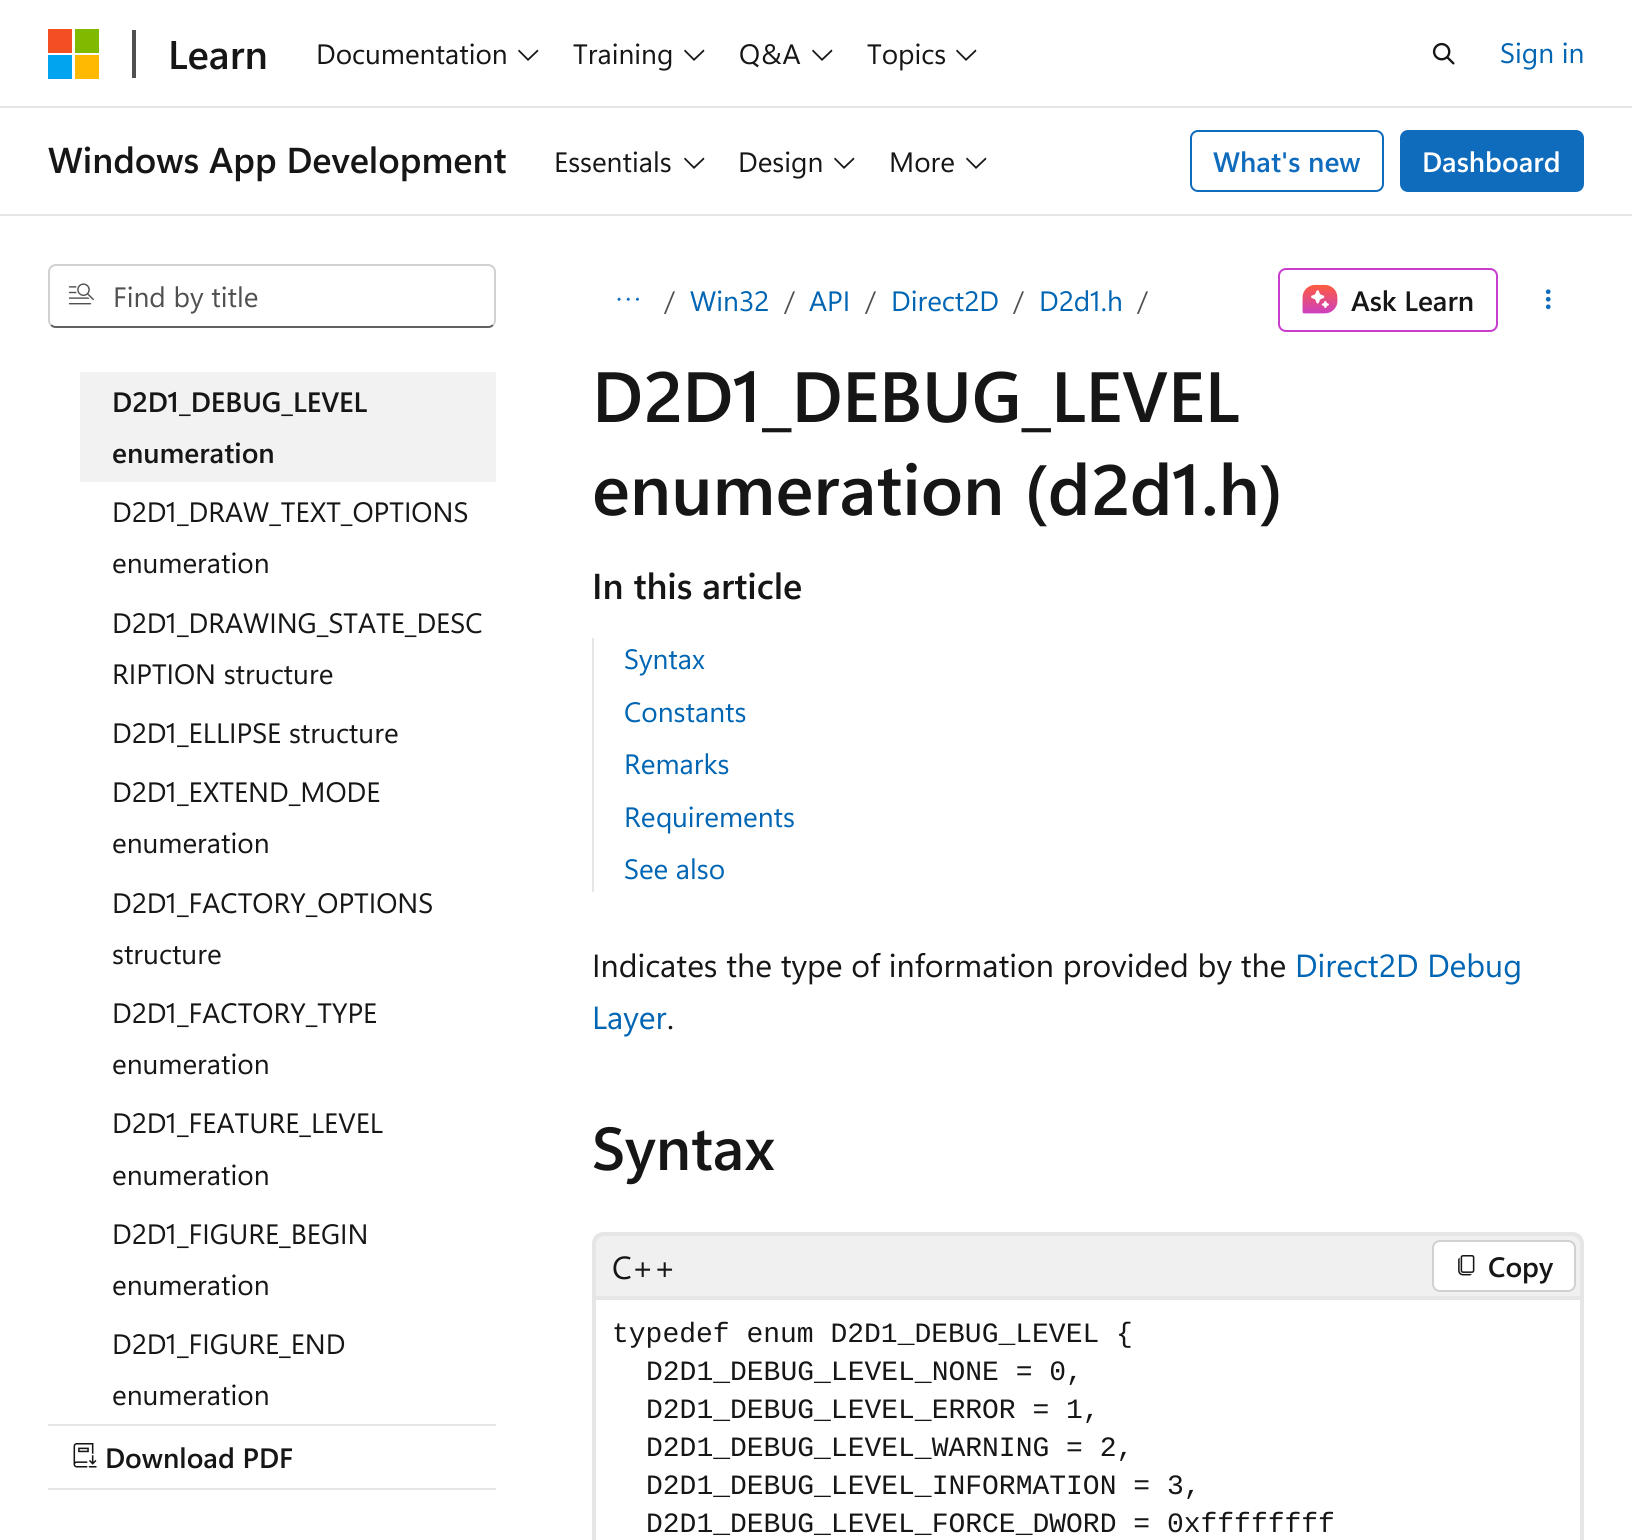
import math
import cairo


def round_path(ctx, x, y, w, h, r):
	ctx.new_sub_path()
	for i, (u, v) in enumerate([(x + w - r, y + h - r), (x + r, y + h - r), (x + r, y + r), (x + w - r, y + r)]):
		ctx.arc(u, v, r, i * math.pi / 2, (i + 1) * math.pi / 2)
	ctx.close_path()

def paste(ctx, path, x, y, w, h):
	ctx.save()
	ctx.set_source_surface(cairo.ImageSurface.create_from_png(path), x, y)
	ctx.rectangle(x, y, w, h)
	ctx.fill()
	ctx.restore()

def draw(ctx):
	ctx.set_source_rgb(1, 1, 1)
	ctx.paint()
	ctx.set_source_rgb(0.902, 0.902, 0.902)
	ctx.rectangle(0, 106, 1632, 2)
	ctx.fill()
	ctx.set_source_rgb(0.949, 0.314, 0.133)
	ctx.rectangle(48, 29, 24, 24)
	ctx.fill()
	ctx.set_source_rgb(0.498, 0.729, 0)
	ctx.rectangle(75, 29, 24, 24)
	ctx.fill()
	ctx.set_source_rgb(0, 0.643, 0.937)
	ctx.rectangle(48, 55, 24, 24)
	ctx.fill()
	ctx.set_source_rgb(1, 0.725, 0)
	ctx.rectangle(75, 55, 24, 24)
	ctx.fill()
	ctx.set_source_rgb(0.314, 0.314, 0.314)
	ctx.rectangle(132, 30, 4, 48)
	ctx.fill()
	ctx.select_font_face('Segoe UI SemiBold')
	ctx.set_font_size(40)
	ctx.set_source_rgb(0.086, 0.086, 0.086)
	ctx.move_to(168, 69)
	ctx.show_text('Learn')
	ctx.select_font_face('Segoe UI')
	ctx.set_font_size(28)
	ctx.move_to(316, 64)
	ctx.show_text('Documentation')
	ctx.new_path()
	ctx.move_to(528, 61)
	ctx.line_to(518, 51)
	ctx.line_to(519, 49.5)
	ctx.line_to(528, 58.5)
	ctx.line_to(537.5, 49.5)
	ctx.line_to(538.5, 51)
	ctx.close_path()
	ctx.fill()
	ctx.move_to(573, 64)
	ctx.show_text('Training')
	ctx.new_path()
	ctx.move_to(694, 61)
	ctx.line_to(684, 51)
	ctx.line_to(685, 49.5)
	ctx.line_to(694, 58.5)
	ctx.line_to(703.5, 49.5)
	ctx.line_to(704.5, 51)
	ctx.close_path()
	ctx.fill()
	ctx.move_to(739, 64)
	ctx.show_text('Q&A')
	ctx.new_path()
	ctx.move_to(822, 61)
	ctx.line_to(812, 51)
	ctx.line_to(813, 49.5)
	ctx.line_to(822, 58.5)
	ctx.line_to(831.5, 49.5)
	ctx.line_to(832.5, 51)
	ctx.close_path()
	ctx.fill()
	ctx.move_to(867, 64)
	ctx.show_text('Topics')
	ctx.new_path()
	ctx.move_to(966, 61)
	ctx.line_to(956, 51)
	ctx.line_to(957, 49.5)
	ctx.line_to(966, 58.5)
	ctx.line_to(975.5, 49.5)
	ctx.line_to(976.5, 51)
	ctx.close_path()
	ctx.fill()
	paste(ctx, 'media/1.png', 1432, 42, 23, 23)
	ctx.set_source_rgb(0, 0.396, 0.702)
	ctx.move_to(1500, 63)
	ctx.show_text('Sign in')
	ctx.set_source_rgb(0.902, 0.902, 0.902)
	ctx.rectangle(0, 214, 1632, 2)
	ctx.fill()
	ctx.select_font_face('Segoe UI SemiBold')
	ctx.set_font_size(36)
	ctx.set_source_rgb(0.086, 0.086, 0.086)
	ctx.move_to(48, 173)
	ctx.show_text('Windows App Development')
	ctx.select_font_face('Segoe UI')
	ctx.set_font_size(28)
	ctx.move_to(554, 172)
	ctx.show_text('Essentials')
	ctx.new_path()
	ctx.move_to(694, 169)
	ctx.line_to(684, 159)
	ctx.line_to(685, 157.5)
	ctx.line_to(694, 166.5)
	ctx.line_to(703.5, 157.5)
	ctx.line_to(704.5, 159)
	ctx.close_path()
	ctx.fill()
	ctx.move_to(738, 172)
	ctx.show_text('Design')
	ctx.new_path()
	ctx.move_to(844, 169)
	ctx.line_to(834, 159)
	ctx.line_to(835, 157.5)
	ctx.line_to(844, 166.5)
	ctx.line_to(853.5, 157.5)
	ctx.line_to(854.5, 159)
	ctx.close_path()
	ctx.fill()
	ctx.move_to(889, 172)
	ctx.show_text('More')
	ctx.new_path()
	ctx.move_to(976, 169)
	ctx.line_to(966, 159)
	ctx.line_to(967, 157.5)
	ctx.line_to(976, 166.5)
	ctx.line_to(985.5, 157.5)
	ctx.line_to(986.5, 159)
	ctx.close_path()
	ctx.fill()
	round_path(ctx, 1191, 131, 192, 60, 7)
	ctx.set_source_rgb(0.059, 0.424, 0.741)
	ctx.stroke()
	ctx.select_font_face('Segoe UI SemiBold')
	ctx.move_to(1213, 172)
	ctx.show_text('What\'s new')
	round_path(ctx, 1401, 131, 182, 60, 7)
	ctx.fill_preserve()
	ctx.stroke()
	ctx.set_source_rgb(1, 1, 1)
	ctx.move_to(1422, 172)
	ctx.show_text('Dashboard')
	ctx.new_path()
	ctx.move_to(493, 325)
	ctx.curve_to(491.5, 326.5, 490, 327, 488, 327)
	ctx.line_to(56, 327)
	ctx.curve_to(54, 327, 52.5, 326.5, 51, 325)
	ctx.set_source_rgb(0.38, 0.38, 0.38)
	ctx.stroke()
	ctx.new_path()
	ctx.move_to(51, 325)
	ctx.curve_to(49.5, 323.5, 49, 322, 49, 320)
	ctx.line_to(49, 272)
	ctx.curve_to(49, 270, 49.5, 268.5, 51, 267)
	ctx.curve_to(52.5, 265.5, 54, 265, 56, 265)
	ctx.line_to(488, 265)
	ctx.curve_to(490, 265, 491.5, 265.5, 493, 267)
	ctx.curve_to(494.5, 268.5, 495, 270, 495, 272)
	ctx.line_to(495, 320)
	ctx.curve_to(495, 322, 494.5, 323.5, 493, 325)
	ctx.set_source_rgb(0.82, 0.82, 0.82)
	ctx.stroke()
	paste(ctx, 'media/2.png', 68, 283, 26, 22)
	ctx.select_font_face('Segoe UI')
	ctx.set_source_rgb(0.314, 0.314, 0.314)
	ctx.move_to(113, 307)
	ctx.show_text('Find by title')
	ctx.set_source_rgb(0.949, 0.949, 0.949)
	ctx.rectangle(80, 372, 416, 110)
	ctx.fill()
	ctx.select_font_face('Segoe UI SemiBold')
	ctx.set_source_rgb(0.086, 0.086, 0.086)
	ctx.move_to(112, 412)
	ctx.show_text('D2D1_DEBUG_LEVEL')
	ctx.move_to(112, 463)
	ctx.show_text('enumeration')
	ctx.select_font_face('Segoe UI')
	for x, y, s in [
		(112, 522, 'D2D1_DRAW_TEXT_OPTIONS'),
		(112, 573, 'enumeration'),
		(112, 633, 'D2D1_DRAWING_STATE_DESC'),
		(112, 684, 'RIPTION structure'),
		(112, 743, 'D2D1_ELLIPSE structure'),
		(112, 802, 'D2D1_EXTEND_MODE'),
		(112, 853, 'enumeration'),
		(112, 913, 'D2D1_FACTORY_OPTIONS'),
		(112, 964, 'structure'),
		(112, 1023, 'D2D1_FACTORY_TYPE'),
		(112, 1074, 'enumeration'),
		(112, 1133, 'D2D1_FEATURE_LEVEL'),
		(112, 1185, 'enumeration'),
		(112, 1244, 'D2D1_FIGURE_BEGIN'),
		(112, 1295, 'enumeration'),
		(112, 1354, 'D2D1_FIGURE_END'),
		(112, 1405, 'enumeration'),
	]:
		ctx.move_to(x, y)
		ctx.show_text(s)
	ctx.set_source_rgb(0.902, 0.902, 0.902)
	ctx.rectangle(48, 1424, 448, 2)
	ctx.fill()
	ctx.rectangle(48, 1488, 448, 2)
	ctx.fill()
	paste(ctx, 'media/3.png', 73, 1443, 24, 25)
	ctx.select_font_face('Segoe UI SemiBold')
	ctx.set_source_rgb(0.086, 0.086, 0.086)
	ctx.move_to(105, 1468)
	ctx.show_text('Download PDF')
	paste(ctx, 'media/4.png', 617, 297, 22, 4)
	ctx.select_font_face('Segoe UI')
	ctx.set_source_rgb(0.314, 0.314, 0.314)
	ctx.move_to(664, 311)
	ctx.show_text('/')
	ctx.set_source_rgb(0, 0.396, 0.702)
	ctx.move_to(690, 311)
	ctx.show_text('Win32')
	ctx.set_source_rgb(0.314, 0.314, 0.314)
	ctx.move_to(784, 311)
	ctx.show_text('/')
	ctx.set_source_rgb(0, 0.396, 0.702)
	ctx.move_to(809, 311)
	ctx.show_text('API')
	ctx.set_source_rgb(0.314, 0.314, 0.314)
	ctx.move_to(865, 311)
	ctx.show_text('/')
	ctx.set_source_rgb(0, 0.396, 0.702)
	ctx.move_to(891, 311)
	ctx.show_text('Direct2D')
	ctx.set_source_rgb(0.314, 0.314, 0.314)
	ctx.move_to(1013, 311)
	ctx.show_text('/')
	ctx.set_source_rgb(0, 0.396, 0.702)
	ctx.move_to(1039, 311)
	ctx.show_text('D2d1.h')
	ctx.set_source_rgb(0.314, 0.314, 0.314)
	ctx.move_to(1137, 311)
	ctx.show_text('/')
	round_path(ctx, 1279, 269, 218, 62, 7)
	ctx.set_source_rgb(0.78, 0.243, 0.8)
	ctx.stroke()
	paste(ctx, 'media/5.png', 1302, 284, 36, 30)
	ctx.select_font_face('Segoe UI SemiBold')
	ctx.set_source_rgb(0.086, 0.086, 0.086)
	ctx.move_to(1351, 311)
	ctx.show_text('Ask Learn')
	paste(ctx, 'media/6.png', 1545, 289, 6, 21)
	ctx.set_font_size(71)
	ctx.move_to(592, 422)
	ctx.show_text('D2D1_DEBUG_LEVEL')
	ctx.move_to(592, 515)
	ctx.show_text('enumeration (d2d1.h)')
	ctx.set_font_size(36)
	ctx.move_to(592, 599)
	ctx.show_text('In this article')
	ctx.set_source_rgb(0.902, 0.902, 0.902)
	ctx.rectangle(592, 638, 2, 254)
	ctx.fill()
	ctx.select_font_face('Segoe UI')
	ctx.set_font_size(28)
	ctx.set_source_rgb(0, 0.396, 0.702)
	for x, y, s in [
		(624, 669, 'Syntax'),
		(624, 722, 'Constants'),
		(624, 774, 'Remarks'),
		(624, 827, 'Requirements'),
		(624, 879, 'See also'),
	]:
		ctx.move_to(x, y)
		ctx.show_text(s)
	ctx.set_font_size(32)
	ctx.set_source_rgb(0.086, 0.086, 0.086)
	ctx.move_to(592, 977)
	ctx.show_text('Indicates the type of information provided by the')
	ctx.set_source_rgb(0, 0.396, 0.702)
	ctx.move_to(1295, 977)
	ctx.show_text('Direct2D Debug')
	ctx.move_to(592, 1029)
	ctx.show_text('Layer')
	ctx.set_source_rgb(0.086, 0.086, 0.086)
	ctx.move_to(667, 1029)
	ctx.show_text('.')
	ctx.select_font_face('Segoe UI SemiBold')
	ctx.set_font_size(60.5)
	ctx.move_to(592, 1170)
	ctx.show_text('Syntax')
	ctx.set_source_rgb(0.941, 0.941, 0.941)
	ctx.new_path()
	ctx.move_to(604, 1232)
	ctx.line_to(1572, 1232)
	ctx.curve_to(1578.5, 1232, 1584, 1237.5, 1584, 1244)
	ctx.line_to(1584, 1296)
	ctx.line_to(592, 1296)
	ctx.line_to(592, 1244)
	ctx.curve_to(592, 1237.5, 597.5, 1232, 604, 1232)
	ctx.close_path()
	ctx.fill()
	ctx.set_source_rgb(0.902, 0.902, 0.902)
	ctx.set_fill_rule(cairo.FILL_RULE_EVEN_ODD)
	ctx.new_path()
	ctx.move_to(604, 1232)
	ctx.line_to(1572, 1232)
	ctx.curve_to(1579, 1232, 1584, 1237, 1584, 1244)
	ctx.line_to(1584, 1296)
	ctx.line_to(592, 1296)
	ctx.line_to(592, 1244)
	ctx.curve_to(592, 1237, 597, 1232, 604, 1232)
	ctx.close_path()
	ctx.move_to(604, 1236)
	ctx.line_to(1572, 1236)
	ctx.curve_to(1576, 1236, 1580, 1240, 1580, 1244)
	ctx.line_to(1580, 1296)
	ctx.line_to(596, 1296)
	ctx.line_to(596, 1244)
	ctx.curve_to(596, 1240, 600, 1236, 604, 1236)
	ctx.close_path()
	ctx.fill()
	ctx.select_font_face('Segoe UI')
	ctx.set_font_size(32)
	ctx.set_source_rgb(0.086, 0.086, 0.086)
	ctx.move_to(612, 1279)
	ctx.show_text('C++')
	ctx.set_source_rgb(1, 1, 1)
	round_path(ctx, 1433, 1241, 142, 50, 7)
	ctx.fill_preserve()
	ctx.set_source_rgb(0.82, 0.82, 0.82)
	ctx.stroke()
	paste(ctx, 'media/7.png', 1458, 1255, 17, 21)
	ctx.select_font_face('Segoe UI SemiBold')
	ctx.set_font_size(28)
	ctx.set_source_rgb(0.086, 0.086, 0.086)
	ctx.move_to(1488, 1277)
	ctx.show_text('Copy')
	ctx.rectangle(594, 1298, 988, 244)
	ctx.set_source_rgb(0.902, 0.902, 0.902)
	ctx.set_line_width(4)
	ctx.stroke()
	ctx.select_font_face('Liberation Mono')
	ctx.set_source_rgb(0.086, 0.086, 0.086)
	for x, y, s in [
		(612, 1342, 'typedef enum D2D1_DEBUG_LEVEL {'),
		(646, 1380, 'D2D1_DEBUG_LEVEL_NONE = 0,'),
		(646, 1418, 'D2D1_DEBUG_LEVEL_ERROR = 1,'),
		(646, 1456, 'D2D1_DEBUG_LEVEL_WARNING = 2,'),
		(646, 1494, 'D2D1_DEBUG_LEVEL_INFORMATION = 3,'),
		(646, 1532, 'D2D1_DEBUG_LEVEL_FORCE_DWORD = 0xffffffff'),
	]:
		ctx.move_to(x, y)
		ctx.show_text(s)


surface = cairo.ImageSurface(cairo.FORMAT_RGB24, 1632, 1540)
ctx = cairo.Context(surface)
options = cairo.FontOptions()
options.set_hint_metrics(cairo.HINT_METRICS_OFF)
options.set_hint_style(cairo.HINT_STYLE_NONE)
ctx.set_font_options(options)
ctx.set_miter_limit(4)
draw(ctx)
surface.write_to_png('image.png')
